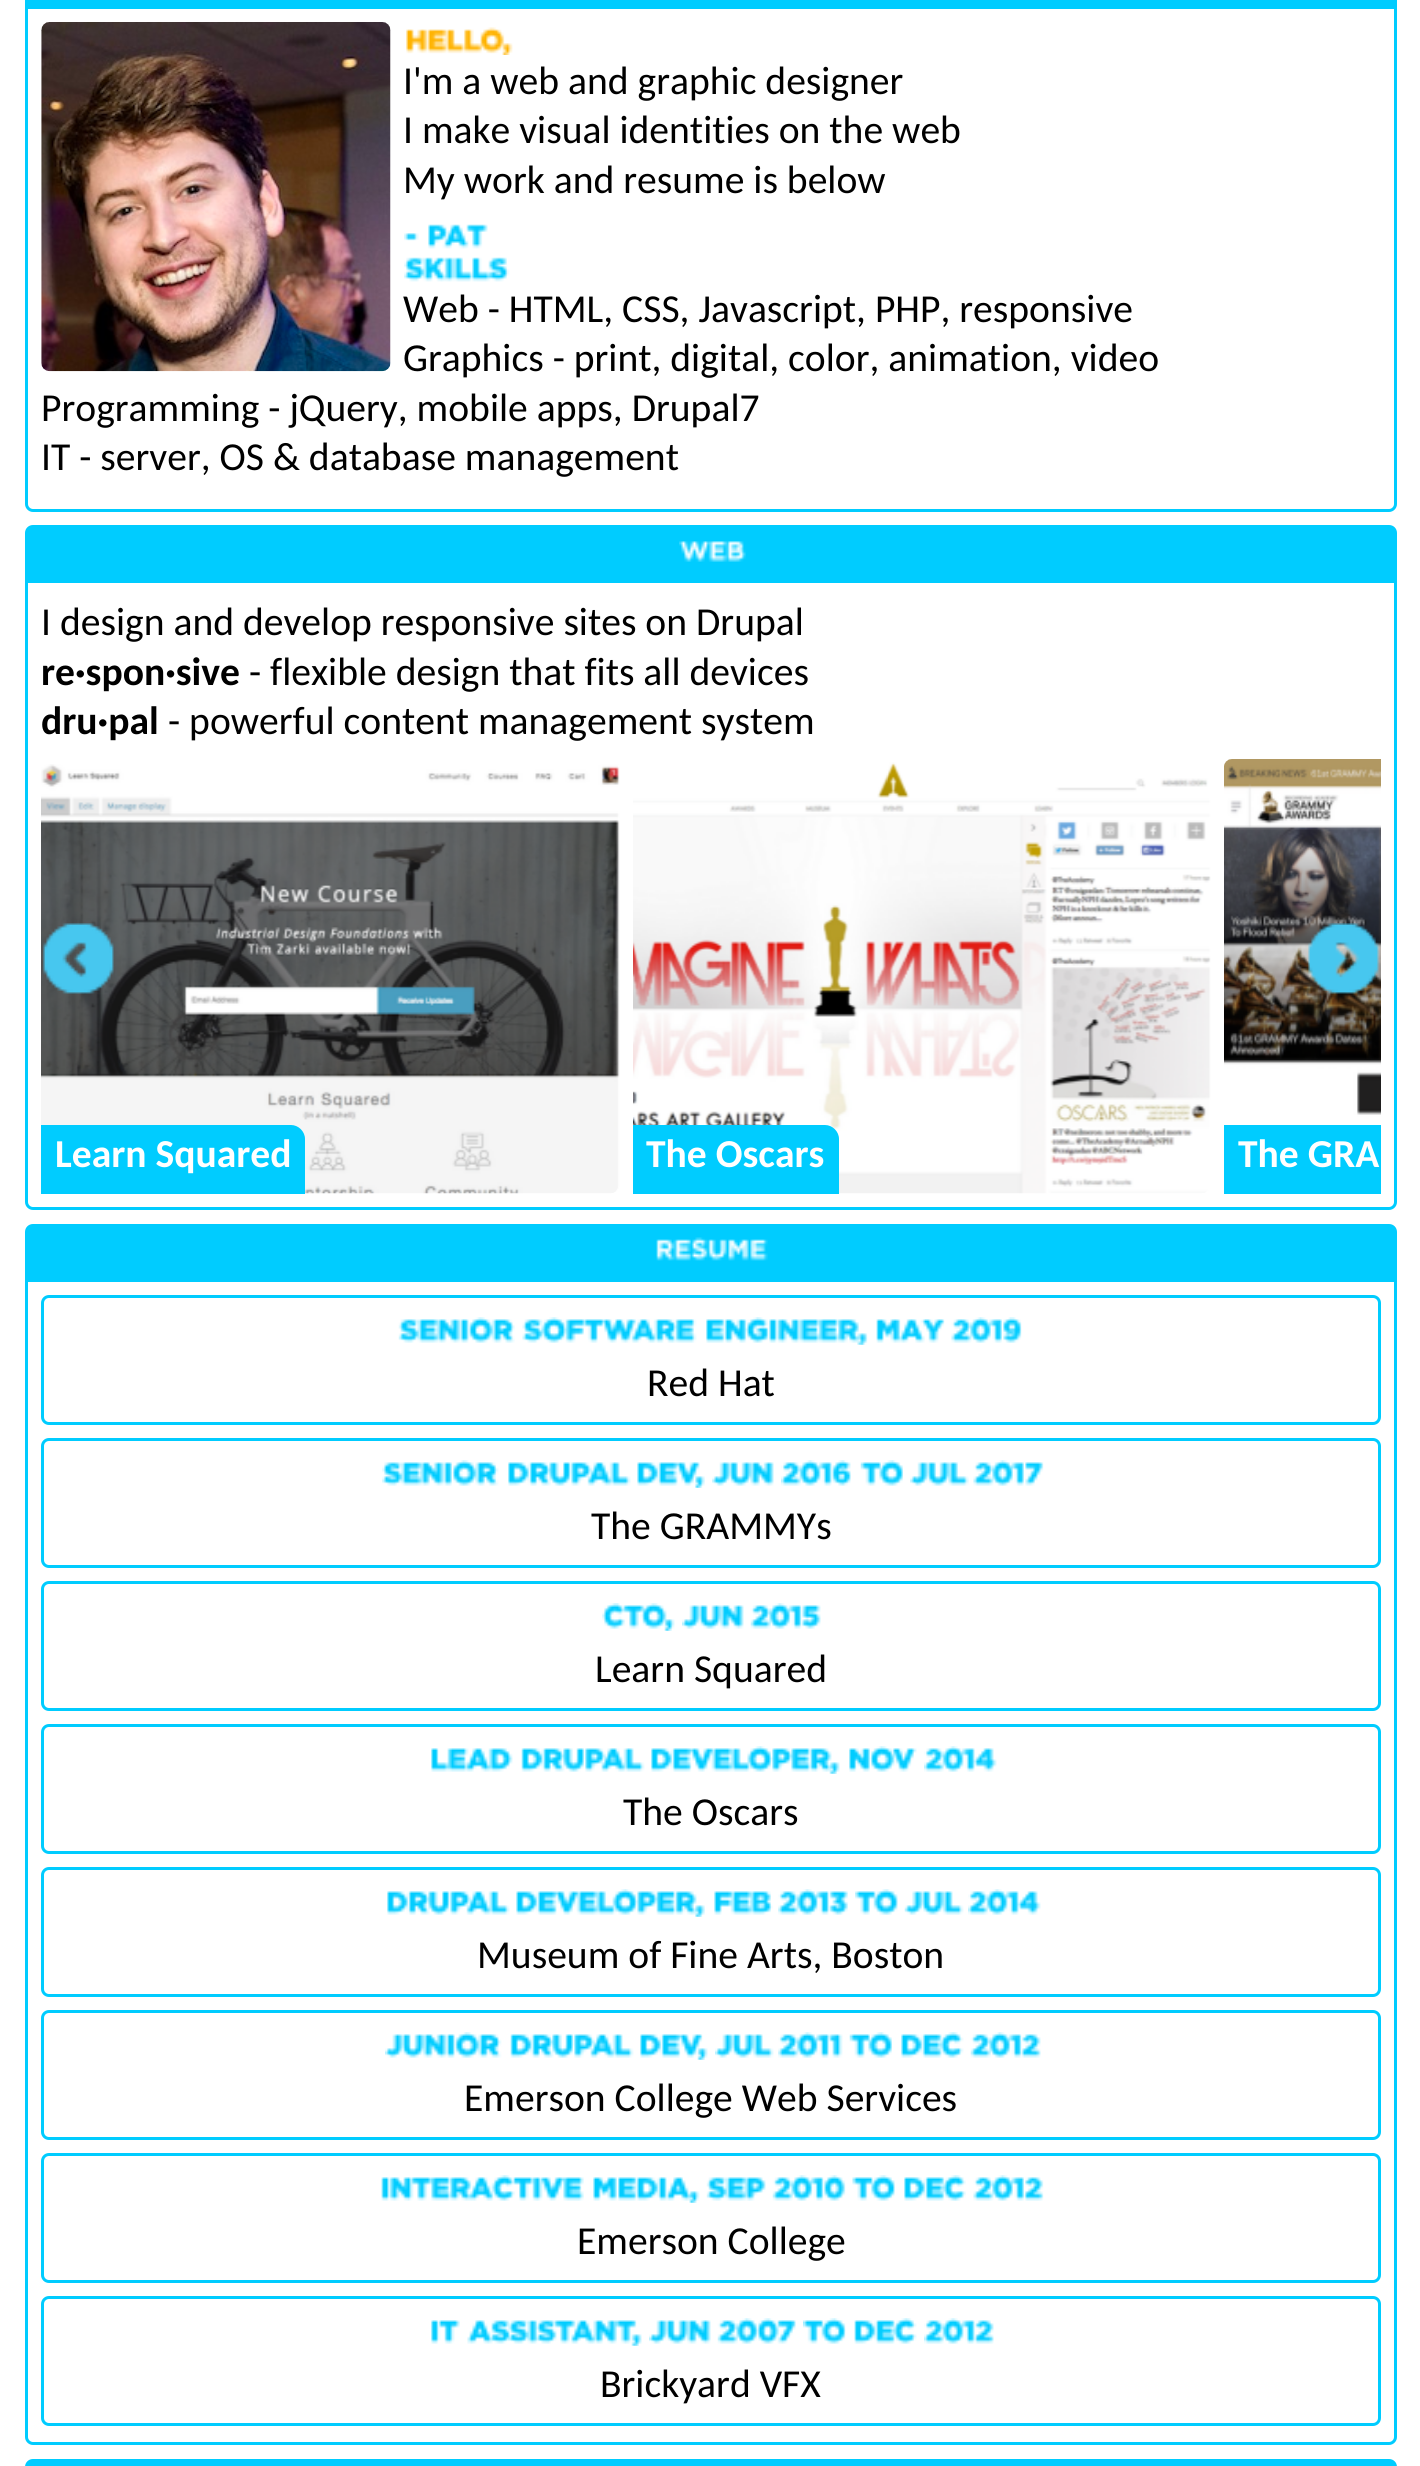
import math
import cairo


def round_path(ctx, x, y, w, h, r):
	ctx.new_sub_path()
	for i, (u, v) in enumerate([(x + w - r, y + h - r), (x + r, y + h - r), (x + r, y + r), (x + w - r, y + r)]):
		ctx.arc(u, v, r, i * math.pi / 2, (i + 1) * math.pi / 2)
	ctx.close_path()

def paste(ctx, path, x, y, w, h):
	ctx.save()
	ctx.set_source_surface(cairo.ImageSurface.create_from_png(path), x, y)
	ctx.rectangle(x, y, w, h)
	ctx.fill()
	ctx.restore()

def draw(ctx):
	ctx.set_source_rgb(1, 1, 1)
	ctx.paint()
	ctx.set_source_rgb(0, 0.8, 1)
	ctx.rectangle(25, 0, 1372, 6)
	ctx.fill()
	ctx.new_path()
	ctx.move_to(26.5, 7.5)
	ctx.line_to(1395.5, 7.5)
	ctx.line_to(1395.5, 504)
	ctx.curve_to(1395.5, 507.5, 1392.5, 510.5, 1389, 510.5)
	ctx.line_to(33, 510.5)
	ctx.curve_to(29.5, 510.5, 26.5, 507.5, 26.5, 504)
	ctx.close_path()
	ctx.set_line_width(3)
	ctx.stroke()
	paste(ctx, 'media/1.png', 41, 22, 350, 350)
	paste(ctx, 'media/2.png', 406, 27, 107, 28)
	ctx.select_font_face('Carlito')
	ctx.set_font_size(39.6)
	ctx.set_source_rgb(0, 0, 0)
	for x, y, s in [
		(403, 94, 'I\'m a web and graphic designer'),
		(403, 143, 'I make visual identities on the web'),
		(403, 193, 'My work and resume is below'),
	]:
		ctx.move_to(x, y)
		ctx.show_text(s)
	paste(ctx, 'media/3.png', 404, 233, 15, 8)
	paste(ctx, 'media/4.png', 428, 224, 60, 25)
	paste(ctx, 'media/5.png', 404, 257, 106, 25)
	for x, y, s in [
		(403, 322, 'Web - HTML, CSS, Javascript, PHP, responsive'),
		(403, 371, 'Graphics - print, digital, color, animation, video'),
		(41, 421, 'Programming - jQuery, mobile apps, Drupal7'),
		(41, 470, 'IT - server, OS & database management'),
	]:
		ctx.move_to(x, y)
		ctx.show_text(s)
	ctx.set_source_rgb(0, 0.8, 1)
	ctx.new_path()
	ctx.move_to(33, 525)
	ctx.line_to(1389, 525)
	ctx.curve_to(1393.5, 525, 1397, 528.5, 1397, 533)
	ctx.line_to(1397, 580)
	ctx.line_to(25, 580)
	ctx.line_to(25, 533)
	ctx.curve_to(25, 528.5, 28.5, 525, 33, 525)
	ctx.close_path()
	ctx.fill()
	paste(ctx, 'media/6.png', 679, 541, 67, 21)
	ctx.new_path()
	ctx.move_to(26.5, 581.5)
	ctx.line_to(1395.5, 581.5)
	ctx.line_to(1395.5, 1202)
	ctx.curve_to(1395.5, 1205.5, 1392.5, 1208.5, 1389, 1208.5)
	ctx.line_to(33, 1208.5)
	ctx.curve_to(29.5, 1208.5, 26.5, 1205.5, 26.5, 1202)
	ctx.close_path()
	ctx.stroke()
	ctx.set_source_rgb(0, 0, 0)
	ctx.move_to(41, 635)
	ctx.show_text('I design and develop responsive sites on Drupal')
	ctx.select_font_face('Carlito', cairo.FONT_SLANT_NORMAL, cairo.FONT_WEIGHT_BOLD)
	ctx.move_to(41, 685)
	ctx.show_text('re·spon·sive')
	ctx.select_font_face('Carlito')
	ctx.move_to(249, 685)
	ctx.show_text('- flexible design that fits all devices')
	ctx.select_font_face('Carlito', cairo.FONT_SLANT_NORMAL, cairo.FONT_WEIGHT_BOLD)
	ctx.move_to(41, 734)
	ctx.show_text('dru·pal')
	ctx.select_font_face('Carlito')
	ctx.move_to(168, 734)
	ctx.show_text('- powerful content management system')
	paste(ctx, 'media/9.png', 41, 764, 579, 430)
	paste(ctx, 'media/7.png', 43, 923, 71, 71)
	paste(ctx, 'media/11.png', 1224, 759, 157, 366)
	paste(ctx, 'media/8.png', 1308, 923, 71, 71)
	ctx.set_source_rgb(0, 0.8, 1)
	ctx.new_path()
	ctx.move_to(41, 1125)
	ctx.line_to(291, 1125)
	ctx.curve_to(298.5, 1125, 305, 1131.5, 305, 1139)
	ctx.line_to(305, 1194)
	ctx.line_to(41, 1194)
	ctx.close_path()
	ctx.fill()
	ctx.select_font_face('Carlito', cairo.FONT_SLANT_NORMAL, cairo.FONT_WEIGHT_BOLD)
	ctx.set_source_rgb(1, 1, 1)
	ctx.move_to(55, 1167)
	ctx.show_text('Learn Squared')
	paste(ctx, 'media/10.png', 633, 762, 578, 432)
	ctx.set_source_rgb(0, 0.8, 1)
	ctx.new_path()
	ctx.move_to(633, 1125)
	ctx.line_to(825, 1125)
	ctx.curve_to(832.5, 1125, 839, 1131.5, 839, 1139)
	ctx.line_to(839, 1194)
	ctx.line_to(633, 1194)
	ctx.close_path()
	ctx.fill()
	ctx.set_source_rgb(1, 1, 1)
	ctx.move_to(646, 1167)
	ctx.show_text('The Oscars')
	ctx.set_source_rgb(0, 0.8, 1)
	ctx.rectangle(1224, 1125, 157, 69)
	ctx.fill()
	ctx.set_source_rgb(1, 1, 1)
	ctx.move_to(1238, 1167)
	ctx.show_text('The GRA')
	ctx.set_source_rgb(0, 0.8, 1)
	ctx.new_path()
	ctx.move_to(33, 1224)
	ctx.line_to(1389, 1224)
	ctx.curve_to(1393.5, 1224, 1397, 1227.5, 1397, 1232)
	ctx.line_to(1397, 1279)
	ctx.line_to(25, 1279)
	ctx.line_to(25, 1232)
	ctx.curve_to(25, 1227.5, 28.5, 1224, 33, 1224)
	ctx.close_path()
	ctx.fill()
	paste(ctx, 'media/12.png', 656, 1237, 112, 24)
	ctx.new_path()
	ctx.move_to(26.5, 1280.5)
	ctx.line_to(1395.5, 1280.5)
	ctx.line_to(1395.5, 2437)
	ctx.curve_to(1395.5, 2440.5, 1392.5, 2443.5, 1389, 2443.5)
	ctx.line_to(33, 2443.5)
	ctx.curve_to(29.5, 2443.5, 26.5, 2440.5, 26.5, 2437)
	ctx.close_path()
	ctx.stroke()
	round_path(ctx, 42.5, 1296.5, 1337, 127, 6.5)
	ctx.stroke()
	paste(ctx, 'media/13.png', 398, 1317, 117, 26)
	paste(ctx, 'media/14.png', 522, 1317, 175, 26)
	paste(ctx, 'media/15.png', 706, 1317, 162, 28)
	paste(ctx, 'media/16.png', 876, 1319, 69, 24)
	paste(ctx, 'media/17.png', 951, 1317, 71, 26)
	ctx.select_font_face('Carlito')
	ctx.set_source_rgb(0, 0, 0)
	ctx.move_to(647, 1396)
	ctx.show_text('Red Hat')
	round_path(ctx, 42.5, 1439.5, 1337, 127, 6.5)
	ctx.set_source_rgb(0, 0.8, 1)
	ctx.stroke()
	paste(ctx, 'media/18.png', 382, 1460, 117, 26)
	paste(ctx, 'media/19.png', 508, 1462, 123, 24)
	paste(ctx, 'media/20.png', 637, 1462, 68, 26)
	paste(ctx, 'media/21.png', 712, 1462, 62, 24)
	paste(ctx, 'media/22.png', 781, 1460, 70, 26)
	paste(ctx, 'media/23.png', 860, 1460, 43, 26)
	paste(ctx, 'media/24.png', 910, 1462, 59, 24)
	paste(ctx, 'media/25.png', 973, 1460, 71, 26)
	ctx.set_source_rgb(0, 0, 0)
	ctx.move_to(591, 1539)
	ctx.show_text('The GRAMMYs')
	round_path(ctx, 42.5, 1582.5, 1337, 127, 6.5)
	ctx.set_source_rgb(0, 0.8, 1)
	ctx.stroke()
	paste(ctx, 'media/26.png', 602, 1603, 73, 28)
	paste(ctx, 'media/27.png', 682, 1605, 62, 24)
	paste(ctx, 'media/28.png', 750, 1603, 71, 26)
	ctx.set_source_rgb(0, 0, 0)
	ctx.move_to(595, 1682)
	ctx.show_text('Learn Squared')
	round_path(ctx, 42.5, 1725.5, 1337, 127, 6.5)
	ctx.set_source_rgb(0, 0.8, 1)
	ctx.stroke()
	paste(ctx, 'media/29.png', 431, 1748, 82, 24)
	paste(ctx, 'media/30.png', 521, 1748, 124, 24)
	paste(ctx, 'media/31.png', 651, 1746, 189, 28)
	paste(ctx, 'media/32.png', 849, 1746, 68, 26)
	paste(ctx, 'media/33.png', 924, 1746, 73, 26)
	ctx.set_source_rgb(0, 0, 0)
	ctx.move_to(623, 1825)
	ctx.show_text('The Oscars')
	round_path(ctx, 42.5, 1868.5, 1337, 127, 6.5)
	ctx.set_source_rgb(0, 0.8, 1)
	ctx.stroke()
	paste(ctx, 'media/19.png', 387, 1891, 123, 24)
	paste(ctx, 'media/34.png', 516, 1889, 189, 28)
	paste(ctx, 'media/35.png', 714, 1891, 59, 24)
	paste(ctx, 'media/36.png', 778, 1889, 70, 26)
	paste(ctx, 'media/37.png', 855, 1889, 43, 26)
	paste(ctx, 'media/38.png', 904, 1891, 60, 24)
	paste(ctx, 'media/33.png', 968, 1889, 73, 26)
	ctx.set_source_rgb(0, 0, 0)
	ctx.move_to(477, 1968)
	ctx.show_text('Museum of Fine Arts, Boston')
	round_path(ctx, 42.5, 2011.5, 1337, 127, 6.5)
	ctx.set_source_rgb(0, 0.8, 1)
	ctx.stroke()
	paste(ctx, 'media/39.png', 385, 2032, 117, 26)
	paste(ctx, 'media/30.png', 510, 2034, 124, 24)
	paste(ctx, 'media/40.png', 640, 2034, 68, 26)
	paste(ctx, 'media/41.png', 715, 2034, 59, 24)
	paste(ctx, 'media/42.png', 778, 2032, 65, 26)
	paste(ctx, 'media/23.png', 849, 2032, 43, 26)
	paste(ctx, 'media/43.png', 901, 2032, 63, 26)
	paste(ctx, 'media/44.png', 970, 2032, 71, 26)
	ctx.set_source_rgb(0, 0, 0)
	ctx.move_to(464, 2111)
	ctx.show_text('Emerson College Web Services')
	round_path(ctx, 42.5, 2154.5, 1337, 127, 6.5)
	ctx.set_source_rgb(0, 0.8, 1)
	ctx.stroke()
	paste(ctx, 'media/45.png', 381, 2175, 203, 26)
	paste(ctx, 'media/46.png', 593, 2177, 107, 26)
	paste(ctx, 'media/47.png', 706, 2177, 60, 24)
	paste(ctx, 'media/48.png', 772, 2175, 74, 26)
	paste(ctx, 'media/49.png', 852, 2175, 43, 26)
	paste(ctx, 'media/50.png', 904, 2175, 62, 26)
	paste(ctx, 'media/51.png', 973, 2175, 71, 26)
	ctx.set_source_rgb(0, 0, 0)
	ctx.move_to(577, 2254)
	ctx.show_text('Emerson College')
	round_path(ctx, 42.5, 2297.5, 1337, 127, 6.5)
	ctx.set_source_rgb(0, 0.8, 1)
	ctx.stroke()
	paste(ctx, 'media/52.png', 431, 2320, 29, 24)
	paste(ctx, 'media/53.png', 467, 2320, 175, 26)
	paste(ctx, 'media/27.png', 649, 2320, 62, 24)
	paste(ctx, 'media/54.png', 717, 2318, 79, 26)
	paste(ctx, 'media/55.png', 803, 2318, 43, 26)
	paste(ctx, 'media/56.png', 854, 2318, 63, 26)
	paste(ctx, 'media/57.png', 924, 2318, 70, 26)
	ctx.set_source_rgb(0, 0, 0)
	ctx.move_to(600, 2397)
	ctx.show_text('Brickyard VFX')
	ctx.set_source_rgb(0, 0.8, 1)
	ctx.new_path()
	ctx.move_to(33, 2459)
	ctx.line_to(1389, 2459)
	ctx.curve_to(1393.5, 2459, 1397, 2462.5, 1397, 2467)
	ctx.line_to(1397, 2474)
	ctx.line_to(25, 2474)
	ctx.line_to(25, 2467)
	ctx.curve_to(25, 2462.5, 28.5, 2459, 33, 2459)
	ctx.close_path()
	ctx.fill()


surface = cairo.ImageSurface(cairo.FORMAT_RGB24, 1420, 2466)
ctx = cairo.Context(surface)
options = cairo.FontOptions()
options.set_hint_metrics(cairo.HINT_METRICS_OFF)
options.set_hint_style(cairo.HINT_STYLE_NONE)
ctx.set_font_options(options)
ctx.set_miter_limit(4)
draw(ctx)
surface.write_to_png('image.png')
